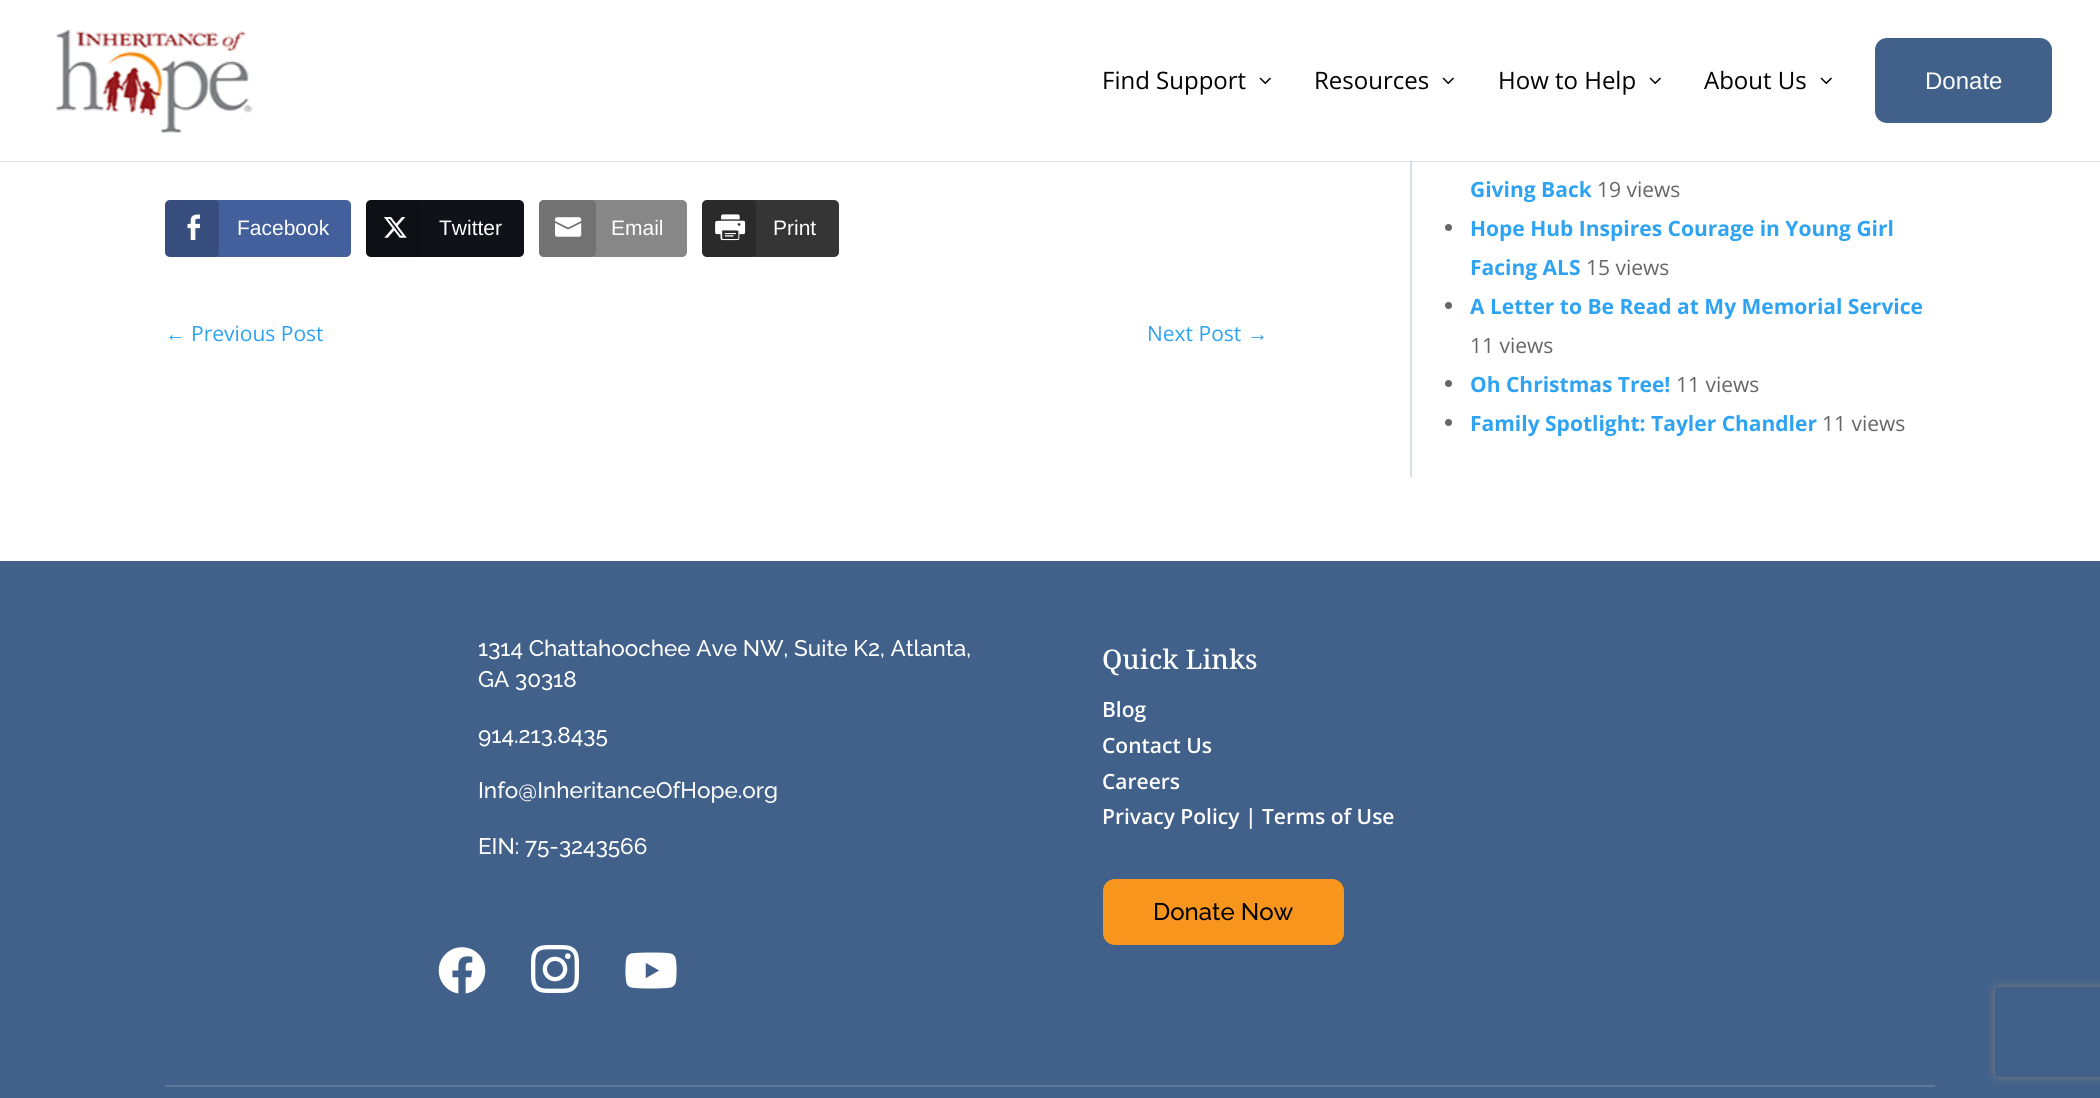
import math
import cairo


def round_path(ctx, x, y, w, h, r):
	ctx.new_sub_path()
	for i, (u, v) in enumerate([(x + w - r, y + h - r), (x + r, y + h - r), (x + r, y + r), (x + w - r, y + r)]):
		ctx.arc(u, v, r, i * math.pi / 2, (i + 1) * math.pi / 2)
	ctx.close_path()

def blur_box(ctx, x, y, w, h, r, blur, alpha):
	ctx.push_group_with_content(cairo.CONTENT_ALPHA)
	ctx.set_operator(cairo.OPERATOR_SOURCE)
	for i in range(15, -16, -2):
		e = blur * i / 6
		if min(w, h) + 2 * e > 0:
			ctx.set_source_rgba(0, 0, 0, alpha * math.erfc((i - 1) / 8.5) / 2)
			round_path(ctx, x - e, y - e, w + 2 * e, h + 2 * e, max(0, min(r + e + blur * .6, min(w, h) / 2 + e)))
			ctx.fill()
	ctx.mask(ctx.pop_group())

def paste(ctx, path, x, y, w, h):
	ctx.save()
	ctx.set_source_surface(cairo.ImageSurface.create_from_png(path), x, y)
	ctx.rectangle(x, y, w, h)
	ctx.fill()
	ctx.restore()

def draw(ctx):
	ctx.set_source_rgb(1, 1, 1)
	ctx.paint()
	ctx.set_source_rgb(0.851, 0.875, 0.91)
	ctx.rectangle(1410, 161, 2, 316)
	ctx.fill()
	ctx.set_source_rgba(0, 0, 0, 0.1)
	ctx.rectangle(0, 161, 2100, 1)
	ctx.fill()
	paste(ctx, 'media/1.png', 55, 29, 198, 104)
	ctx.select_font_face('Open Sans')
	ctx.set_font_size(24)
	ctx.set_source_rgb(0, 0, 0)
	ctx.move_to(1102, 89)
	ctx.show_text('Find Support')
	paste(ctx, 'media/2.png', 1259, 77, 12, 7)
	ctx.move_to(1314, 89)
	ctx.show_text('Resources')
	paste(ctx, 'media/2.png', 1442, 77, 12, 7)
	ctx.move_to(1498, 89)
	ctx.show_text('How to Help')
	paste(ctx, 'media/2.png', 1649, 77, 12, 7)
	ctx.move_to(1704, 89)
	ctx.show_text('About Us')
	paste(ctx, 'media/2.png', 1820, 77, 12, 7)
	ctx.set_source_rgb(0.255, 0.38, 0.541)
	round_path(ctx, 1875, 38, 177, 85, 12)
	ctx.fill()
	ctx.select_font_face('Liberation Sans')
	ctx.set_source_rgb(1, 1, 1)
	ctx.move_to(1925, 89)
	ctx.show_text('Donate')
	ctx.set_source_rgb(0.263, 0.376, 0.612)
	round_path(ctx, 165, 200, 186, 57, 5)
	ctx.fill()
	ctx.set_source_rgba(0, 0, 0, 0.2)
	round_path(ctx, 165, 200, 54, 57, 5)
	ctx.fill()
	paste(ctx, 'media/3.png', 187, 214, 14, 27)
	ctx.set_font_size(21)
	ctx.set_source_rgb(1, 1, 1)
	ctx.move_to(237, 235)
	ctx.show_text('Facebook')
	ctx.set_source_rgb(0.059, 0.078, 0.098)
	round_path(ctx, 366, 200, 158, 57, 5)
	ctx.fill()
	ctx.set_source_rgba(0, 0, 0, 0.2)
	round_path(ctx, 366, 200, 54, 57, 5)
	ctx.fill()
	paste(ctx, 'media/4.png', 384, 217, 23, 21)
	ctx.set_source_rgb(1, 1, 1)
	ctx.move_to(439, 235)
	ctx.show_text('Twitter')
	ctx.set_source_rgb(0.529, 0.529, 0.529)
	round_path(ctx, 539, 200, 148, 57, 5)
	ctx.fill()
	ctx.set_source_rgb(0.447, 0.447, 0.447)
	round_path(ctx, 539, 200, 57, 57, 5)
	ctx.fill()
	paste(ctx, 'media/5.png', 555, 217, 27, 20)
	ctx.set_source_rgb(1, 1, 1)
	ctx.move_to(611, 235)
	ctx.show_text('Email')
	ctx.set_source_rgb(0.208, 0.208, 0.208)
	round_path(ctx, 702, 200, 137, 57, 5)
	ctx.fill()
	ctx.set_source_rgba(0, 0, 0, 0.2)
	round_path(ctx, 702, 200, 54, 57, 5)
	ctx.fill()
	paste(ctx, 'media/6.png', 715, 214, 31, 27)
	ctx.set_source_rgb(1, 1, 1)
	ctx.move_to(773, 235)
	ctx.show_text('Print')
	ctx.set_source_rgb(0.18, 0.639, 0.949)
	ctx.move_to(165, 341)
	ctx.show_text('←')
	ctx.select_font_face('Open Sans')
	ctx.move_to(191, 341)
	ctx.show_text('Previous Post')
	ctx.move_to(1147, 341)
	ctx.show_text('Next Post')
	ctx.select_font_face('Liberation Sans')
	ctx.move_to(1247, 341)
	ctx.show_text('→')
	ctx.select_font_face('Open Sans', cairo.FONT_SLANT_NORMAL, cairo.FONT_WEIGHT_BOLD)
	ctx.move_to(1470, 197)
	ctx.show_text('Giving Back')
	ctx.select_font_face('Open Sans')
	ctx.set_source_rgb(0.4, 0.4, 0.4)
	ctx.move_to(1597, 197)
	ctx.show_text('19 views')
	ctx.new_path()
	ctx.arc(1448.5, 227.5, 3.5, 0, 2 * math.pi)
	ctx.fill()
	ctx.select_font_face('Open Sans', cairo.FONT_SLANT_NORMAL, cairo.FONT_WEIGHT_BOLD)
	ctx.set_source_rgb(0.18, 0.639, 0.949)
	ctx.move_to(1470, 236)
	ctx.show_text('Hope Hub Inspires Courage in Young Girl')
	ctx.move_to(1470, 275)
	ctx.show_text('Facing ALS')
	ctx.select_font_face('Open Sans')
	ctx.set_source_rgb(0.4, 0.4, 0.4)
	ctx.move_to(1586, 275)
	ctx.show_text('15 views')
	ctx.new_path()
	ctx.arc(1448.5, 305.5, 3.5, 0, 2 * math.pi)
	ctx.fill()
	ctx.select_font_face('Open Sans', cairo.FONT_SLANT_NORMAL, cairo.FONT_WEIGHT_BOLD)
	ctx.set_source_rgb(0.18, 0.639, 0.949)
	ctx.move_to(1470, 314)
	ctx.show_text('A Letter to Be Read at My Memorial Service')
	ctx.select_font_face('Open Sans')
	ctx.set_source_rgb(0.4, 0.4, 0.4)
	ctx.move_to(1470, 353)
	ctx.show_text('11 views')
	ctx.new_path()
	ctx.arc(1448.5, 383.5, 3.5, 0, 2 * math.pi)
	ctx.fill()
	ctx.select_font_face('Open Sans', cairo.FONT_SLANT_NORMAL, cairo.FONT_WEIGHT_BOLD)
	ctx.set_source_rgb(0.18, 0.639, 0.949)
	ctx.move_to(1470, 392)
	ctx.show_text('Oh Christmas Tree!')
	ctx.select_font_face('Open Sans')
	ctx.set_source_rgb(0.4, 0.4, 0.4)
	ctx.move_to(1676, 392)
	ctx.show_text('11 views')
	ctx.new_path()
	ctx.arc(1448.5, 422.5, 3.5, 0, 2 * math.pi)
	ctx.fill()
	ctx.select_font_face('Open Sans', cairo.FONT_SLANT_NORMAL, cairo.FONT_WEIGHT_BOLD)
	ctx.set_source_rgb(0.18, 0.639, 0.949)
	ctx.move_to(1470, 431)
	ctx.show_text('Family Spotlight: Tayler Chandler')
	ctx.select_font_face('Open Sans')
	ctx.set_source_rgb(0.4, 0.4, 0.4)
	ctx.move_to(1822, 431)
	ctx.show_text('11 views')
	ctx.set_source_rgb(0.255, 0.38, 0.541)
	ctx.rectangle(0, 561, 2100, 537)
	ctx.fill()
	ctx.select_font_face('Raleway Medium')
	ctx.set_font_size(22.5)
	ctx.set_source_rgb(1, 1, 1)
	for x, y, s in [
		(478, 656, '1314 Chattahoochee Ave NW, Suite K2, Atlanta,'),
		(478, 687, 'GA 30318'),
		(478, 743, '914.213.8435'),
		(478, 798, 'Info@InheritanceOfHope.org'),
		(478, 854, 'EIN: 75-3243566'),
	]:
		ctx.move_to(x, y)
		ctx.show_text(s)
	paste(ctx, 'media/7.png', 438, 947, 48, 47)
	paste(ctx, 'media/8.png', 531, 945, 48, 48)
	paste(ctx, 'media/9.png', 625, 952, 52, 37)
	ctx.select_font_face('Noto Serif Medium')
	ctx.set_font_size(27)
	ctx.move_to(1102, 669)
	ctx.show_text('Quick Links')
	ctx.select_font_face('Open Sans SemiBold')
	ctx.set_font_size(21)
	for x, y, s in [
		(1102, 717, 'Blog'),
		(1102, 753, 'Contact Us'),
		(1102, 789, 'Careers'),
		(1102, 824, 'Privacy Policy | Terms of Use'),
	]:
		ctx.move_to(x, y)
		ctx.show_text(s)
	ctx.set_source_rgb(0.965, 0.584, 0.11)
	round_path(ctx, 1104.5, 880.5, 238, 63, 10.5)
	ctx.fill_preserve()
	ctx.set_line_width(3)
	ctx.stroke()
	ctx.select_font_face('Raleway Medium')
	ctx.set_font_size(24)
	ctx.set_source_rgb(0, 0, 0)
	ctx.move_to(1153, 920)
	ctx.show_text('Donate Now')
	ctx.set_source_rgb(0.361, 0.467, 0.604)
	ctx.rectangle(165, 1085, 1770, 2)
	ctx.fill()
	ctx.save()
	ctx.set_fill_rule(cairo.FILL_RULE_EVEN_ODD)
	ctx.new_path()
	ctx.move_to(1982, 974)
	ctx.line_to(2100, 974)
	ctx.line_to(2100, 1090)
	ctx.line_to(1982, 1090)
	ctx.close_path()
	ctx.move_to(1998, 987)
	ctx.line_to(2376, 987)
	ctx.curve_to(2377.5, 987, 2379, 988.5, 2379, 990)
	ctx.line_to(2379, 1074)
	ctx.curve_to(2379, 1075.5, 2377.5, 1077, 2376, 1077)
	ctx.line_to(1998, 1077)
	ctx.curve_to(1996.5, 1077, 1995, 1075.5, 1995, 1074)
	ctx.line_to(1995, 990)
	ctx.curve_to(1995, 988.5, 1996.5, 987, 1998, 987)
	ctx.close_path()
	ctx.clip()
	ctx.set_source_rgb(0.502, 0.502, 0.502)
	blur_box(ctx, 1995, 987, 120, 90, 3, 4, 1)
	ctx.restore()


surface = cairo.ImageSurface(cairo.FORMAT_RGB24, 2100, 1098)
ctx = cairo.Context(surface)
options = cairo.FontOptions()
options.set_hint_metrics(cairo.HINT_METRICS_OFF)
options.set_hint_style(cairo.HINT_STYLE_NONE)
ctx.set_font_options(options)
ctx.set_miter_limit(4)
draw(ctx)
surface.write_to_png('image.png')
